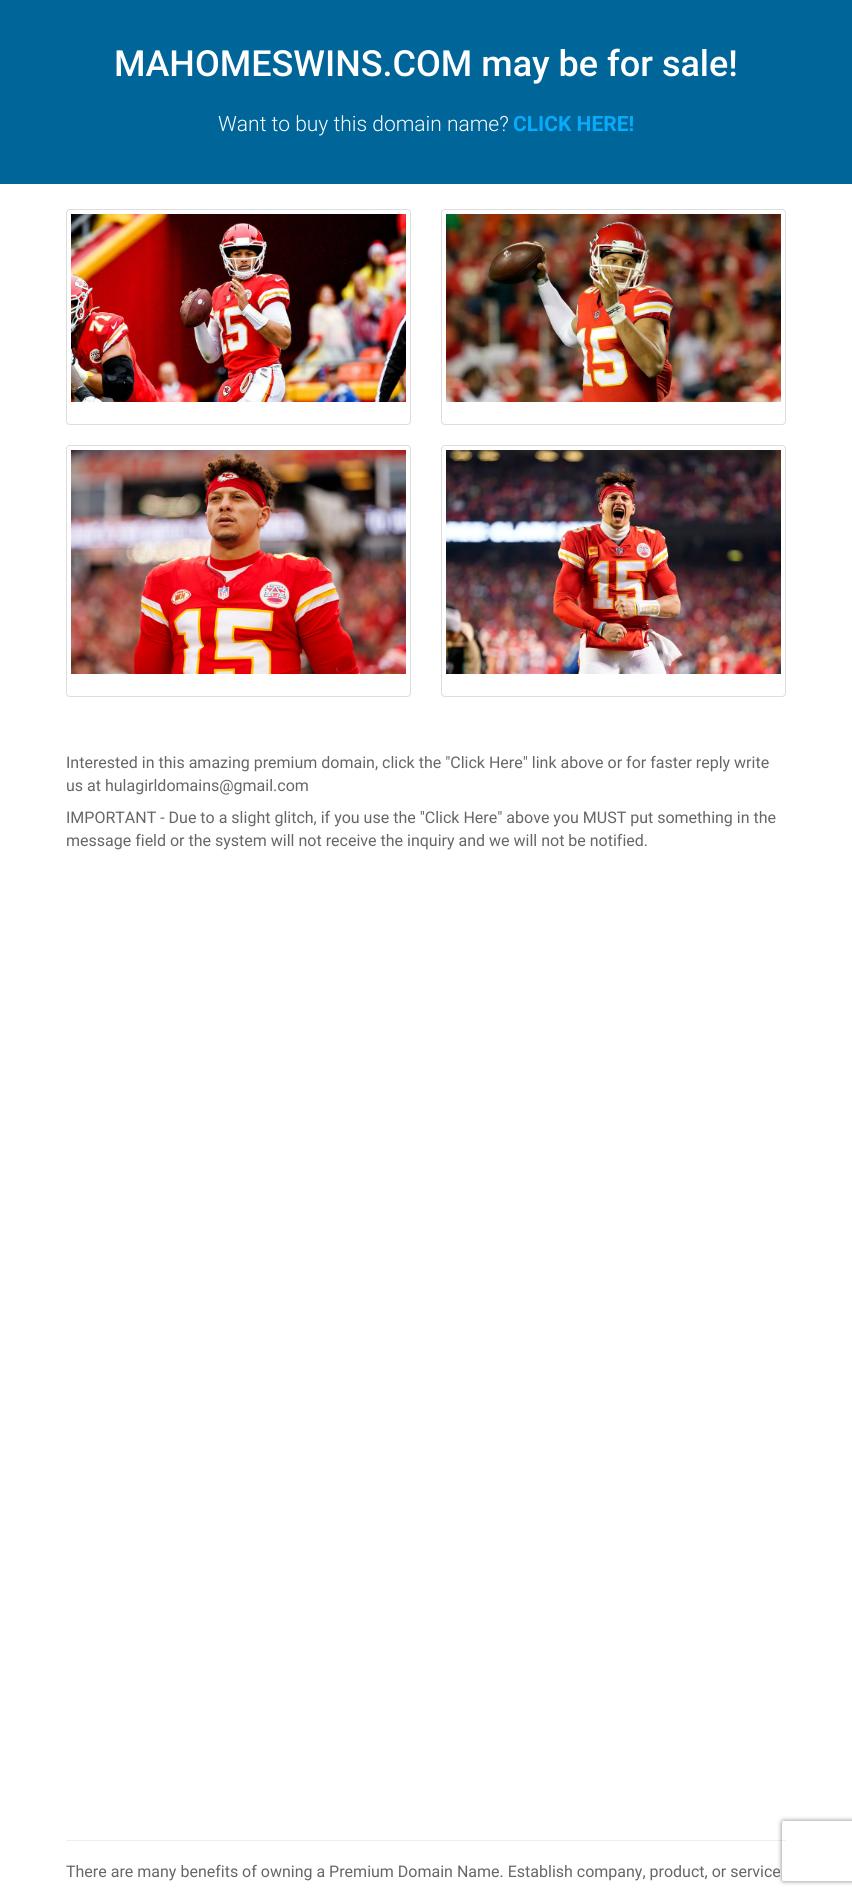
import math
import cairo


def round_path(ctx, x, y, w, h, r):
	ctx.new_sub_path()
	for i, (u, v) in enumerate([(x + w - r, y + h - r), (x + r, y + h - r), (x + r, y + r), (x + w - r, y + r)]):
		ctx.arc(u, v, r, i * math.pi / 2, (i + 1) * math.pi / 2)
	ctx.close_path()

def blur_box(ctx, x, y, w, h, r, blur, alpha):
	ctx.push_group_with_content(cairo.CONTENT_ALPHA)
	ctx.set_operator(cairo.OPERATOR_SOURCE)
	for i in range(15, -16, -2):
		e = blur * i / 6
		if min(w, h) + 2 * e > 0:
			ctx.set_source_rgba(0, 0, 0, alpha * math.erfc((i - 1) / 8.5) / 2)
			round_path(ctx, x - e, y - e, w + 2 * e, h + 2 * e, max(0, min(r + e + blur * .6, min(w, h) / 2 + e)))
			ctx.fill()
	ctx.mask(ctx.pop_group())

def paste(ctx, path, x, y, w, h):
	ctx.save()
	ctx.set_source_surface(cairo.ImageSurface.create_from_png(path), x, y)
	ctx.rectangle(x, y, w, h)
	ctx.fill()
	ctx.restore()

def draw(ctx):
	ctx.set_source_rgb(1, 1, 1)
	ctx.paint()
	ctx.set_source_rgb(0, 0.4, 0.6)
	ctx.rectangle(0, 0, 852, 184)
	ctx.fill()
	ctx.select_font_face('Roboto Medium')
	ctx.set_font_size(36)
	ctx.set_source_rgb(1, 1, 1)
	ctx.move_to(114, 76)
	ctx.show_text('MAHOMESWINS.COM may be for sale!')
	ctx.select_font_face('Roboto Light')
	ctx.set_font_size(21)
	ctx.move_to(218, 131)
	ctx.show_text('Want to buy this domain name?')
	ctx.select_font_face('Roboto', cairo.FONT_SLANT_NORMAL, cairo.FONT_WEIGHT_BOLD)
	ctx.set_source_rgb(0.027, 0.671, 0.984)
	ctx.move_to(513, 131)
	ctx.show_text('CLICK HERE!')
	round_path(ctx, 66.5, 209.5, 344, 215, 3.5)
	ctx.set_source_rgb(0.867, 0.867, 0.867)
	ctx.set_line_width(1)
	ctx.stroke()
	paste(ctx, 'media/1.png', 71, 214, 335, 188)
	round_path(ctx, 441.5, 209.5, 344, 215, 3.5)
	ctx.stroke()
	paste(ctx, 'media/2.png', 446, 214, 335, 188)
	round_path(ctx, 66.5, 445.5, 344, 251, 3.5)
	ctx.stroke()
	paste(ctx, 'media/3.png', 71, 450, 335, 224)
	round_path(ctx, 441.5, 445.5, 344, 251, 3.5)
	ctx.stroke()
	paste(ctx, 'media/4.png', 446, 450, 335, 224)
	ctx.select_font_face('Roboto')
	ctx.set_font_size(16)
	ctx.set_source_rgb(0.4, 0.4, 0.4)
	for x, y, s in [
		(66, 768, 'Interested in this amazing premium domain, click the "Click Here" link above or for faster reply write'),
		(66, 791, 'us at hulagirldomains@gmail.com'),
		(66, 823, 'IMPORTANT - Due to a slight glitch, if you use the "Click Here" above you MUST put something in the'),
		(66, 846, 'message field or the system will not receive the inquiry and we will not be notified.'),
	]:
		ctx.move_to(x, y)
		ctx.show_text(s)
	ctx.set_source_rgb(0.933, 0.933, 0.933)
	ctx.rectangle(66, 1840, 720, 1)
	ctx.fill()
	ctx.set_source_rgb(0.4, 0.4, 0.4)
	ctx.move_to(66, 1877)
	ctx.show_text('There are many benefits of owning a Premium Domain Name. Establish company, product, or service')
	ctx.save()
	ctx.set_fill_rule(cairo.FILL_RULE_EVEN_ODD)
	ctx.new_path()
	ctx.move_to(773, 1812)
	ctx.line_to(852, 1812)
	ctx.line_to(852, 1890)
	ctx.line_to(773, 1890)
	ctx.close_path()
	ctx.move_to(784, 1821)
	ctx.line_to(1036, 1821)
	ctx.curve_to(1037, 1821, 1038, 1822, 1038, 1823)
	ctx.line_to(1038, 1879)
	ctx.curve_to(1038, 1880, 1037, 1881, 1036, 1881)
	ctx.line_to(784, 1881)
	ctx.curve_to(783, 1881, 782, 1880, 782, 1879)
	ctx.line_to(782, 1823)
	ctx.curve_to(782, 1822, 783, 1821, 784, 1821)
	ctx.close_path()
	ctx.clip()
	ctx.set_source_rgb(0.502, 0.502, 0.502)
	blur_box(ctx, 782, 1821, 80, 60, 2, 2.5, 1)
	ctx.restore()


surface = cairo.ImageSurface(cairo.FORMAT_RGB24, 852, 1895)
ctx = cairo.Context(surface)
options = cairo.FontOptions()
options.set_hint_metrics(cairo.HINT_METRICS_OFF)
options.set_hint_style(cairo.HINT_STYLE_NONE)
ctx.set_font_options(options)
ctx.set_miter_limit(4)
draw(ctx)
surface.write_to_png('image.png')
